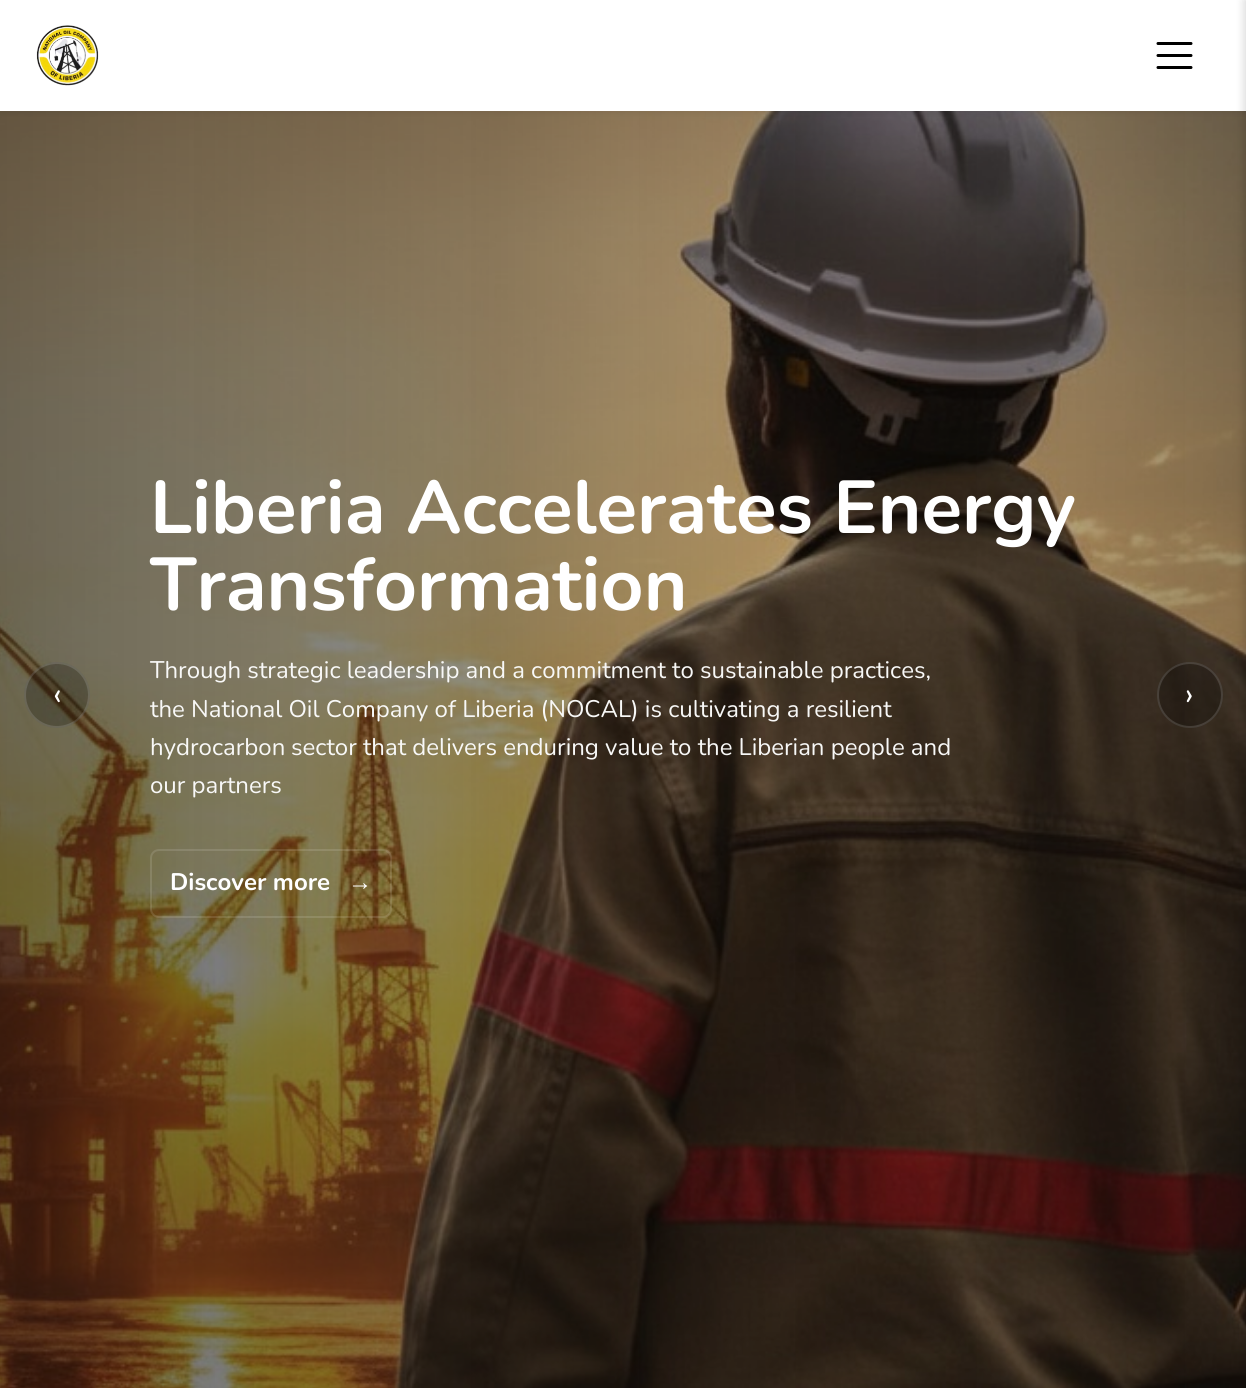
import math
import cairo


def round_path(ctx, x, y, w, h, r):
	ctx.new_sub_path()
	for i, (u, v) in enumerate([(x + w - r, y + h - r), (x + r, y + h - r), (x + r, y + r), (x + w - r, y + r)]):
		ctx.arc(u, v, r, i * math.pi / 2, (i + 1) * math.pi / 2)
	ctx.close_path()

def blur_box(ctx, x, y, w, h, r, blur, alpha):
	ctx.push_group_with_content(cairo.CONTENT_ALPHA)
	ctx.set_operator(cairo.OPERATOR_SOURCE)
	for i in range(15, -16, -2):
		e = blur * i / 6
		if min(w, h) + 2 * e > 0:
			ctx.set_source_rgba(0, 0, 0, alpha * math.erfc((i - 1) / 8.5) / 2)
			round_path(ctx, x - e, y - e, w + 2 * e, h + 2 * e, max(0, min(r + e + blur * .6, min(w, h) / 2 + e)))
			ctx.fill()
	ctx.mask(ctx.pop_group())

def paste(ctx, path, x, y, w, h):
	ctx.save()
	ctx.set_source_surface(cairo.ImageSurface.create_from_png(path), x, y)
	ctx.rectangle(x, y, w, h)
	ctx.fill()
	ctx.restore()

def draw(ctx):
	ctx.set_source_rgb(1, 1, 1)
	ctx.paint()
	paste(ctx, 'media/1.png', 0, 111, 1246, 1277)
	ctx.set_source_rgb(0, 0, 0)
	blur_box(ctx, 0, 3, 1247, 111, 0, 3, 0.05)
	ctx.set_source_rgb(1, 1, 1)
	ctx.rectangle(0, 0, 1246, 111)
	ctx.fill()
	paste(ctx, 'media/2.png', 36, 25, 63, 61)
	ctx.new_path()
	ctx.move_to(1158, 43.5)
	ctx.line_to(1191, 43.5)
	ctx.move_to(1158, 55.5)
	ctx.line_to(1191, 55.5)
	ctx.move_to(1158, 67.5)
	ctx.line_to(1191, 67.5)
	ctx.set_source_rgb(0, 0, 0)
	ctx.set_line_width(3)
	ctx.set_line_cap(cairo.LINE_CAP_ROUND)
	ctx.set_line_join(cairo.LINE_JOIN_ROUND)
	ctx.stroke()
	ctx.set_source_rgb(0, 0, 0)
	blur_box(ctx, 1244, 0, 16, 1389, 0, 4.5, 0.15)
	ctx.set_source_rgba(0, 0, 0, 0.25)
	ctx.arc(57, 695, 33, 0, 2 * math.pi)
	ctx.fill()
	ctx.arc(57, 695, 32, 0, 2 * math.pi)
	ctx.set_source_rgba(1, 1, 1, 0.14)
	ctx.set_line_width(2)
	ctx.set_line_cap(cairo.LINE_CAP_BUTT)
	ctx.set_line_join(cairo.LINE_JOIN_MITER)
	ctx.stroke()
	ctx.select_font_face('Nunito')
	ctx.set_font_size(33)
	ctx.set_source_rgb(1, 1, 1)
	ctx.move_to(53, 705)
	ctx.show_text('‹')
	ctx.select_font_face('Nunito', cairo.FONT_SLANT_NORMAL, cairo.FONT_WEIGHT_BOLD)
	ctx.set_font_size(74.75)
	ctx.move_to(150, 533)
	ctx.show_text('Liberia Accelerates Energy')
	ctx.move_to(150, 610)
	ctx.show_text('Transformation')
	ctx.select_font_face('Nunito')
	ctx.set_font_size(24)
	ctx.set_source_rgb(0.969, 0.969, 0.965)
	for x, y, s in [
		(150, 678, 'Through strategic leadership and a commitment to sustainable practices,'),
		(150, 717, 'the'),
		(191, 717, 'National Oil Company of Liberia (NOCAL) is cultivating a resilient'),
		(150, 755, 'hydrocarbon'),
		(291, 755, 'sector that delivers enduring value to the Liberian people and'),
		(150, 793, 'our partners'),
	]:
		ctx.move_to(x, y)
		ctx.show_text(s)
	round_path(ctx, 151, 850, 240, 67, 8)
	ctx.set_source_rgba(1, 1, 1, 0.12)
	ctx.stroke()
	ctx.select_font_face('Nunito', cairo.FONT_SLANT_NORMAL, cairo.FONT_WEIGHT_BOLD)
	ctx.set_source_rgb(1, 1, 1)
	ctx.move_to(170, 890)
	ctx.show_text('Discover more')
	ctx.select_font_face('Liberation Sans', cairo.FONT_SLANT_NORMAL, cairo.FONT_WEIGHT_BOLD)
	ctx.move_to(348, 890)
	ctx.show_text('→')
	ctx.set_source_rgba(0, 0, 0, 0.25)
	ctx.new_path()
	ctx.arc(1190, 695, 33, 0, 2 * math.pi)
	ctx.fill()
	ctx.arc(1190, 695, 32, 0, 2 * math.pi)
	ctx.set_source_rgba(1, 1, 1, 0.14)
	ctx.stroke()
	ctx.select_font_face('Nunito')
	ctx.set_font_size(33)
	ctx.set_source_rgb(1, 1, 1)
	ctx.move_to(1185, 705)
	ctx.show_text('›')


surface = cairo.ImageSurface(cairo.FORMAT_RGB24, 1246, 1388)
ctx = cairo.Context(surface)
options = cairo.FontOptions()
options.set_hint_metrics(cairo.HINT_METRICS_OFF)
options.set_hint_style(cairo.HINT_STYLE_NONE)
ctx.set_font_options(options)
ctx.set_miter_limit(4)
draw(ctx)
surface.write_to_png('image.png')
